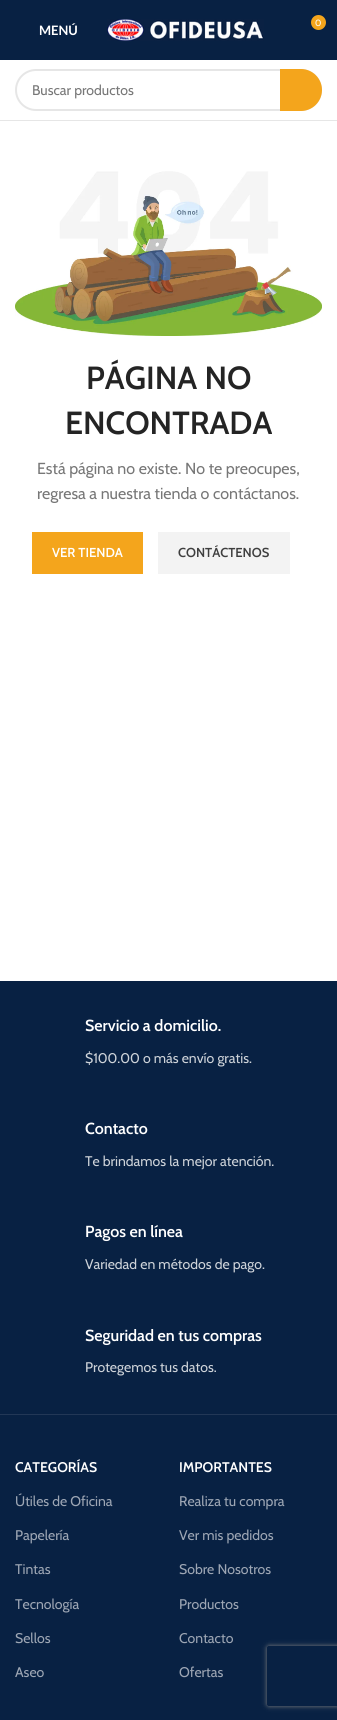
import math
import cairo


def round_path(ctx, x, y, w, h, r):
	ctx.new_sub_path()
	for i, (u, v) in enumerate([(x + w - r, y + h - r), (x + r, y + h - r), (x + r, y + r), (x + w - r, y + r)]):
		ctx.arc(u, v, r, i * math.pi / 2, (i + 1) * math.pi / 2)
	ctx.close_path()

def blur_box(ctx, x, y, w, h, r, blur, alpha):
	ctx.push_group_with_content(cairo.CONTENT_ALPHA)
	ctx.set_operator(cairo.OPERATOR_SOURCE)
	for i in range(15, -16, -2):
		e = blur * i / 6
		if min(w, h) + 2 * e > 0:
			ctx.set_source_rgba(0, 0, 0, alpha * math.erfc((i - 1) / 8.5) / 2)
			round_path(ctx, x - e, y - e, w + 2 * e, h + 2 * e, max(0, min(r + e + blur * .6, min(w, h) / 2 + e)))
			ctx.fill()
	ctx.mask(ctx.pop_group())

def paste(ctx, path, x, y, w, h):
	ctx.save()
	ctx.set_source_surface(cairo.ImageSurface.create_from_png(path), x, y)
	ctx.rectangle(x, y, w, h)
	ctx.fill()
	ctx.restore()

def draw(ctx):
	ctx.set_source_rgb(1, 1, 1)
	ctx.paint()
	ctx.set_source_rgb(0.035, 0.129, 0.263)
	ctx.rectangle(0, 0, 337, 60)
	ctx.fill()
	ctx.select_font_face('Lato', cairo.FONT_SLANT_NORMAL, cairo.FONT_WEIGHT_BOLD)
	ctx.set_font_size(13)
	ctx.set_source_rgb(1, 1, 1)
	ctx.move_to(39, 35)
	ctx.show_text('MENÚ')
	paste(ctx, 'media/1.png', 107, 19, 157, 22)
	ctx.set_source_rgb(0.957, 0.647, 0.11)
	ctx.arc(318.5, 22.5, 7.5, 0, 2 * math.pi)
	ctx.fill()
	ctx.select_font_face('Cabin')
	ctx.set_font_size(9)
	ctx.set_source_rgb(1, 1, 1)
	ctx.move_to(315, 26)
	ctx.show_text('0')
	ctx.set_source_rgb(0.902, 0.902, 0.902)
	ctx.rectangle(0, 120, 337, 1)
	ctx.fill()
	round_path(ctx, 16, 70, 305, 40, 20)
	ctx.stroke()
	ctx.set_font_size(14)
	ctx.set_source_rgb(0.467, 0.467, 0.467)
	ctx.move_to(32, 95)
	ctx.show_text('Buscar productos')
	ctx.set_source_rgb(0.957, 0.647, 0.11)
	ctx.new_path()
	ctx.move_to(280, 69)
	ctx.line_to(301, 69)
	ctx.curve_to(312.5, 69, 322, 78.5, 322, 90)
	ctx.curve_to(322, 101.5, 312.5, 111, 301, 111)
	ctx.line_to(280, 111)
	ctx.close_path()
	ctx.fill()
	paste(ctx, 'media/2.png', 15, 171, 307, 165)
	ctx.select_font_face('Cabin SemiBold')
	ctx.set_font_size(32)
	ctx.set_source_rgb(0.141, 0.141, 0.141)
	ctx.move_to(86, 389)
	ctx.show_text('PÁGINA NO')
	ctx.move_to(65, 434)
	ctx.show_text('ENCONTRADA')
	ctx.select_font_face('Cabin')
	ctx.set_font_size(16)
	ctx.set_source_rgb(0.467, 0.467, 0.467)
	ctx.move_to(37, 474)
	ctx.show_text('Está página no existe. No te preocupes,')
	ctx.move_to(37, 499)
	ctx.show_text('regresa a nuestra tienda o contáctanos.')
	ctx.set_source_rgb(0.957, 0.647, 0.11)
	ctx.rectangle(32, 532, 111, 42)
	ctx.fill()
	ctx.select_font_face('Cabin SemiBold')
	ctx.set_font_size(13)
	ctx.set_source_rgb(1, 1, 1)
	ctx.move_to(52, 557)
	ctx.show_text('VER TIENDA')
	ctx.set_source_rgb(0.953, 0.953, 0.953)
	ctx.rectangle(158, 532, 132, 42)
	ctx.fill()
	ctx.set_source_rgb(0.243, 0.243, 0.243)
	ctx.move_to(178, 557)
	ctx.show_text('CONTÁCTENOS')
	ctx.set_source_rgb(0.035, 0.129, 0.263)
	ctx.rectangle(0, 981, 337, 739)
	ctx.fill()
	ctx.set_source_rgb(0.133, 0.216, 0.337)
	ctx.rectangle(0, 1414, 337, 1)
	ctx.fill()
	ctx.set_font_size(16)
	ctx.set_source_rgb(1, 1, 1)
	ctx.move_to(85, 1031)
	ctx.show_text('Servicio a domicilio.')
	ctx.select_font_face('Cabin')
	ctx.set_font_size(14)
	ctx.set_source_rgb(0.808, 0.827, 0.851)
	ctx.move_to(85, 1063)
	ctx.show_text('$100.00 o más envío gratis.')
	ctx.select_font_face('Cabin SemiBold')
	ctx.set_font_size(16)
	ctx.set_source_rgb(1, 1, 1)
	ctx.move_to(85, 1134)
	ctx.show_text('Contacto')
	ctx.select_font_face('Cabin')
	ctx.set_font_size(14)
	ctx.set_source_rgb(0.808, 0.827, 0.851)
	ctx.move_to(85, 1166)
	ctx.show_text('Te brindamos la mejor atención.')
	ctx.select_font_face('Cabin SemiBold')
	ctx.set_font_size(16)
	ctx.set_source_rgb(1, 1, 1)
	ctx.move_to(85, 1237)
	ctx.show_text('Pagos en línea')
	ctx.select_font_face('Cabin')
	ctx.set_font_size(14)
	ctx.set_source_rgb(0.808, 0.827, 0.851)
	ctx.move_to(85, 1269)
	ctx.show_text('Variedad en métodos de pago.')
	ctx.select_font_face('Cabin SemiBold')
	ctx.set_font_size(16)
	ctx.set_source_rgb(1, 1, 1)
	ctx.move_to(85, 1341)
	ctx.show_text('Seguridad en tus compras')
	ctx.select_font_face('Cabin')
	ctx.set_font_size(14)
	ctx.set_source_rgb(0.808, 0.827, 0.851)
	ctx.move_to(85, 1372)
	ctx.show_text('Protegemos tus datos.')
	ctx.select_font_face('Cabin SemiBold')
	ctx.set_source_rgb(1, 1, 1)
	ctx.move_to(15, 1472)
	ctx.show_text('CATEGORÍAS')
	ctx.select_font_face('Cabin')
	ctx.set_source_rgb(0.616, 0.651, 0.706)
	for x, y, s in [
		(15, 1506, 'Útiles de Oficina'),
		(15, 1540, 'Papelería'),
		(15, 1574, 'Tintas'),
		(15, 1609, 'Tecnología'),
		(15, 1643, 'Sellos'),
		(15, 1677, 'Aseo'),
	]:
		ctx.move_to(x, y)
		ctx.show_text(s)
	ctx.select_font_face('Cabin SemiBold')
	ctx.set_source_rgb(1, 1, 1)
	ctx.move_to(179, 1472)
	ctx.show_text('IMPORTANTES')
	ctx.select_font_face('Cabin')
	ctx.set_source_rgb(0.616, 0.651, 0.706)
	for x, y, s in [
		(179, 1506, 'Realiza tu compra'),
		(179, 1540, 'Ver mis pedidos'),
		(179, 1574, 'Sobre Nosotros'),
		(179, 1609, 'Productos'),
		(179, 1643, 'Contacto'),
		(179, 1677, 'Ofertas'),
	]:
		ctx.move_to(x, y)
		ctx.show_text(s)
	ctx.save()
	ctx.set_fill_rule(cairo.FILL_RULE_EVEN_ODD)
	ctx.new_path()
	ctx.move_to(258, 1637)
	ctx.line_to(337, 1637)
	ctx.line_to(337, 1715)
	ctx.line_to(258, 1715)
	ctx.close_path()
	ctx.move_to(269, 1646)
	ctx.line_to(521, 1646)
	ctx.curve_to(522, 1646, 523, 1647, 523, 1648)
	ctx.line_to(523, 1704)
	ctx.curve_to(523, 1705, 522, 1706, 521, 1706)
	ctx.line_to(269, 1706)
	ctx.curve_to(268, 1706, 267, 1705, 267, 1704)
	ctx.line_to(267, 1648)
	ctx.curve_to(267, 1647, 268, 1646, 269, 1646)
	ctx.close_path()
	ctx.clip()
	ctx.set_source_rgb(0.502, 0.502, 0.502)
	blur_box(ctx, 267, 1646, 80, 60, 2, 2.5, 1)
	ctx.restore()
	ctx.set_source_rgb(0.035, 0.129, 0.263)
	round_path(ctx, 325, 1668, 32, 40, 20)
	ctx.fill()


surface = cairo.ImageSurface(cairo.FORMAT_RGB24, 337, 1720)
ctx = cairo.Context(surface)
options = cairo.FontOptions()
options.set_hint_metrics(cairo.HINT_METRICS_OFF)
options.set_hint_style(cairo.HINT_STYLE_NONE)
ctx.set_font_options(options)
ctx.set_miter_limit(4)
draw(ctx)
surface.write_to_png('image.png')
